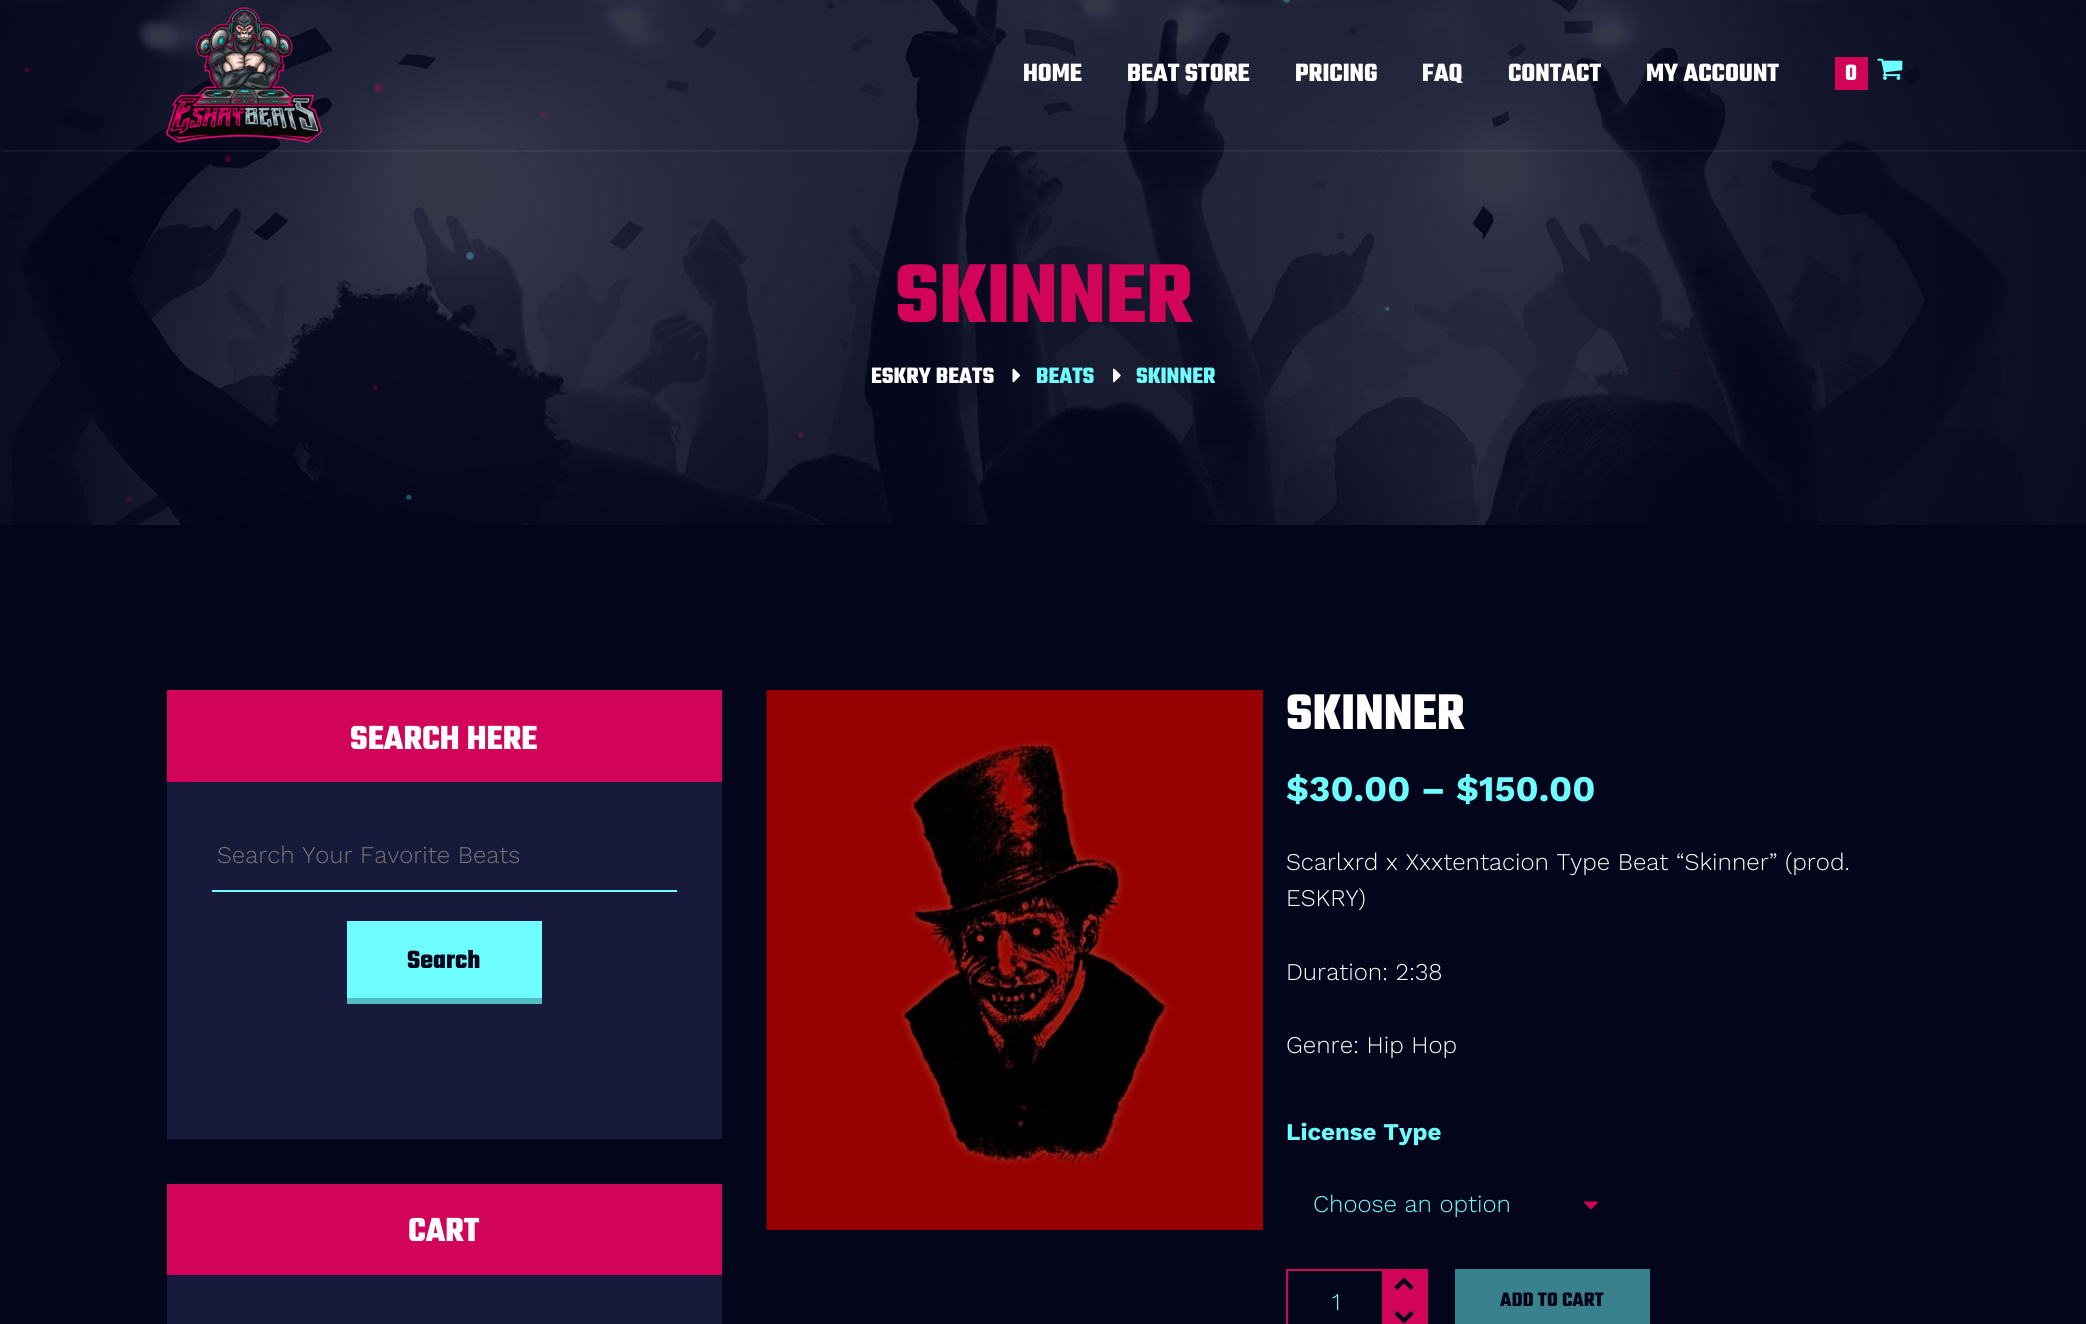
import math
import cairo


def paste(ctx, path, x, y, w, h):
	ctx.save()
	ctx.set_source_surface(cairo.ImageSurface.create_from_png(path), x, y)
	ctx.rectangle(x, y, w, h)
	ctx.fill()
	ctx.restore()

def draw(ctx):
	ctx.set_source_rgb(0.012, 0.02, 0.102)
	ctx.paint()
	paste(ctx, 'media/3.png', 0, 0, 2086, 525)
	paste(ctx, 'media/4.png', 23, 0, 1895, 503)
	ctx.set_source_rgba(1, 1, 1, 0.05)
	ctx.rectangle(2, 150, 2084, 2)
	ctx.fill()
	paste(ctx, 'media/1.png', 165, 7, 157, 136)
	ctx.select_font_face('Teko Light')
	ctx.set_font_size(27)
	ctx.set_source_rgb(1, 1, 1)
	for x, y, s in [
		(1023, 81, 'HOME'),
		(1127, 81, 'BEAT STORE'),
		(1295, 81, 'PRICING'),
		(1422, 81, 'FAQ'),
		(1508, 81, 'CONTACT'),
		(1646, 81, 'MY ACCOUNT'),
	]:
		ctx.move_to(x, y)
		ctx.show_text(s)
	ctx.set_source_rgb(0.82, 0.016, 0.349)
	ctx.rectangle(1835, 57, 33, 33)
	ctx.fill()
	ctx.set_font_size(24)
	ctx.set_source_rgb(1, 1, 1)
	ctx.move_to(1845, 80)
	ctx.show_text('0')
	paste(ctx, 'media/2.png', 1877, 58, 26, 22)
	ctx.set_font_size(90)
	ctx.set_source_rgb(0.82, 0.016, 0.349)
	ctx.move_to(895, 322)
	ctx.show_text('SKINNER')
	ctx.set_font_size(24)
	ctx.set_source_rgb(1, 1, 1)
	ctx.move_to(871, 383)
	ctx.show_text('ESKRY BEATS')
	paste(ctx, 'media/5.png', 1012, 368, 9, 15)
	ctx.set_source_rgb(0.427, 0.992, 1)
	ctx.move_to(1036, 383)
	ctx.show_text('BEATS')
	paste(ctx, 'media/6.png', 1113, 368, 8, 15)
	ctx.move_to(1136, 383)
	ctx.show_text('SKINNER')
	ctx.set_source_rgb(0.09, 0.102, 0.231)
	ctx.rectangle(167, 782, 555, 357)
	ctx.fill()
	ctx.set_source_rgb(0.82, 0.016, 0.349)
	ctx.rectangle(167, 690, 555, 92)
	ctx.fill()
	ctx.set_font_size(36)
	ctx.set_source_rgb(1, 1, 1)
	ctx.move_to(350, 749)
	ctx.show_text('SEARCH HERE')
	ctx.set_source_rgb(0.427, 0.992, 1)
	ctx.rectangle(212, 890, 465, 2)
	ctx.fill()
	ctx.select_font_face('Work Sans Light')
	ctx.set_font_size(24)
	ctx.set_source_rgb(0.459, 0.459, 0.459)
	ctx.move_to(217, 863)
	ctx.show_text('Search Your Favorite Beats')
	ctx.set_source_rgb(0.427, 0.992, 1)
	ctx.rectangle(347, 921, 195, 77)
	ctx.fill()
	ctx.select_font_face('Teko Light')
	ctx.set_font_size(27)
	ctx.set_source_rgb(0.012, 0.02, 0.102)
	ctx.move_to(407, 968)
	ctx.show_text('Search')
	ctx.set_source_rgb(0.322, 0.745, 0.749)
	ctx.rectangle(347, 998, 195, 6)
	ctx.fill()
	ctx.set_source_rgb(0.09, 0.102, 0.231)
	ctx.rectangle(167, 1275, 555, 49)
	ctx.fill()
	ctx.set_source_rgb(0.82, 0.016, 0.349)
	ctx.rectangle(167, 1184, 555, 91)
	ctx.fill()
	ctx.set_font_size(36)
	ctx.set_source_rgb(1, 1, 1)
	ctx.move_to(408, 1241)
	ctx.show_text('CART')
	paste(ctx, 'media/7.png', 766, 690, 497, 540)
	ctx.set_font_size(54)
	ctx.move_to(1286, 729)
	ctx.show_text('SKINNER')
	ctx.select_font_face('Work Sans', cairo.FONT_SLANT_NORMAL, cairo.FONT_WEIGHT_BOLD)
	ctx.set_font_size(36)
	ctx.set_source_rgb(0.427, 0.992, 1)
	ctx.move_to(1286, 801)
	ctx.show_text('$30.00 – $150.00')
	ctx.select_font_face('Work Sans Light')
	ctx.set_font_size(24)
	ctx.set_source_rgb(1, 1, 1)
	for x, y, s in [
		(1286, 870, 'Scarlxrd x Xxxtentacion Type Beat “Skinner” (prod.'),
		(1286, 906, 'ESKRY)'),
		(1286, 980, 'Duration: 2:38'),
		(1286, 1053, 'Genre: Hip Hop'),
	]:
		ctx.move_to(x, y)
		ctx.show_text(s)
	ctx.select_font_face('Work Sans', cairo.FONT_SLANT_NORMAL, cairo.FONT_WEIGHT_BOLD)
	ctx.set_source_rgb(0.427, 0.992, 1)
	ctx.move_to(1286, 1140)
	ctx.show_text('License Type')
	ctx.select_font_face('Work Sans Light')
	ctx.move_to(1313, 1212)
	ctx.show_text('Choose an option')
	paste(ctx, 'media/8.png', 1584, 1201, 14, 9)
	ctx.rectangle(1287, 1270, 140, 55)
	ctx.set_source_rgb(0.82, 0.016, 0.349)
	ctx.stroke()
	ctx.set_source_rgb(0.427, 0.992, 1)
	ctx.move_to(1332, 1310)
	ctx.show_text('1')
	ctx.set_source_rgb(0.82, 0.016, 0.349)
	ctx.rectangle(1382, 1271, 44, 53)
	ctx.fill()
	paste(ctx, 'media/9.png', 1394, 1277, 20, 13)
	paste(ctx, 'media/10.png', 1394, 1311, 20, 13)
	ctx.set_source_rgb(0.22, 0.506, 0.553)
	ctx.rectangle(1455, 1269, 195, 55)
	ctx.fill()
	ctx.select_font_face('Teko Light')
	ctx.set_font_size(21)
	ctx.set_source_rgb(0.012, 0.02, 0.102)
	ctx.move_to(1500, 1306)
	ctx.show_text('ADD TO CART')


surface = cairo.ImageSurface(cairo.FORMAT_RGB24, 2086, 1324)
ctx = cairo.Context(surface)
options = cairo.FontOptions()
options.set_hint_metrics(cairo.HINT_METRICS_OFF)
options.set_hint_style(cairo.HINT_STYLE_NONE)
ctx.set_font_options(options)
ctx.set_miter_limit(4)
draw(ctx)
surface.write_to_png('image.png')
